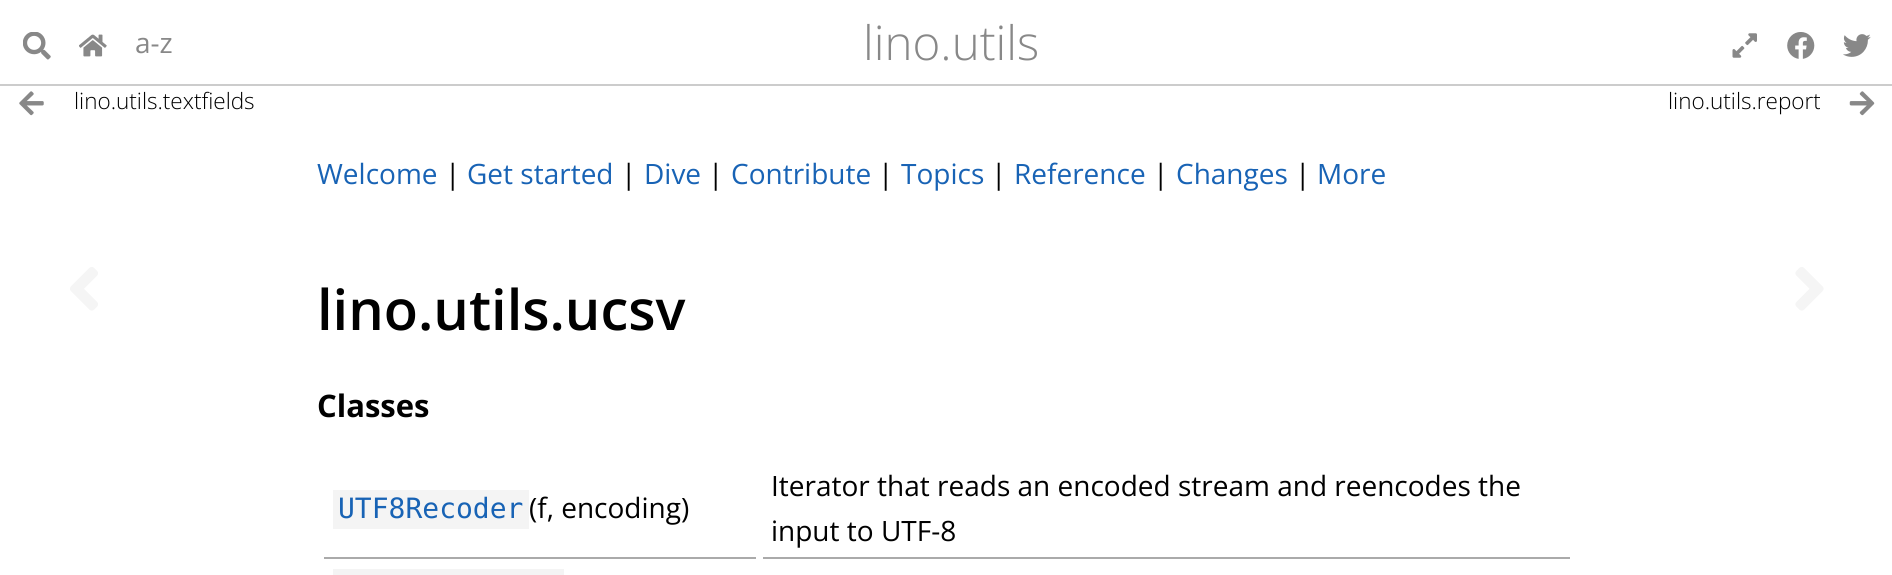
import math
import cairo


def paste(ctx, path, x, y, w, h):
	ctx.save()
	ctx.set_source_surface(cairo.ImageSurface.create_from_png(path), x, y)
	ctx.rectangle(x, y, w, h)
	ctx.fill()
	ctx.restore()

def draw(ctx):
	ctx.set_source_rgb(1, 1, 1)
	ctx.paint()
	ctx.set_source_rgb(0.8, 0.8, 0.8)
	ctx.rectangle(0, 84, 1892, 2)
	ctx.fill()
	paste(ctx, 'media/1.png', 23, 32, 28, 28)
	paste(ctx, 'media/2.png', 79, 34, 28, 23)
	ctx.select_font_face('Open Sans')
	ctx.set_font_size(28)
	ctx.set_source_rgb(0.533, 0.533, 0.533)
	ctx.move_to(135, 53)
	ctx.show_text('a-z')
	ctx.select_font_face('Open Sans Light')
	ctx.set_font_size(47.5)
	ctx.move_to(863, 60)
	ctx.show_text('lino.utils')
	paste(ctx, 'media/3.png', 1732, 33, 25, 25)
	paste(ctx, 'media/4.png', 1787, 32, 28, 27)
	paste(ctx, 'media/5.png', 1843, 34, 28, 23)
	paste(ctx, 'media/6.png', 19, 91, 25, 25)
	ctx.set_font_size(22.5)
	ctx.set_source_rgb(0, 0, 0)
	ctx.move_to(74, 109)
	ctx.show_text('lino.utils.textfields')
	ctx.move_to(1668, 109)
	ctx.show_text('lino.utils.report')
	paste(ctx, 'media/7.png', 1849, 91, 26, 25)
	ctx.select_font_face('Open Sans')
	ctx.set_font_size(28)
	ctx.set_source_rgb(0.094, 0.388, 0.71)
	ctx.move_to(317, 184)
	ctx.show_text('Welcome')
	ctx.set_source_rgb(0, 0, 0)
	ctx.move_to(445, 184)
	ctx.show_text('|')
	ctx.set_source_rgb(0.094, 0.388, 0.71)
	ctx.move_to(467, 184)
	ctx.show_text('Get started')
	ctx.set_source_rgb(0, 0, 0)
	ctx.move_to(621, 184)
	ctx.show_text('|')
	ctx.set_source_rgb(0.094, 0.388, 0.71)
	ctx.move_to(644, 184)
	ctx.show_text('Dive')
	ctx.set_source_rgb(0, 0, 0)
	ctx.move_to(708, 184)
	ctx.show_text('|')
	ctx.set_source_rgb(0.094, 0.388, 0.71)
	ctx.move_to(731, 184)
	ctx.show_text('Contribute')
	ctx.set_source_rgb(0, 0, 0)
	ctx.move_to(878, 184)
	ctx.show_text('|')
	ctx.set_source_rgb(0.094, 0.388, 0.71)
	ctx.move_to(901, 184)
	ctx.show_text('Topics')
	ctx.set_source_rgb(0, 0, 0)
	ctx.move_to(991, 184)
	ctx.show_text('|')
	ctx.set_source_rgb(0.094, 0.388, 0.71)
	ctx.move_to(1014, 184)
	ctx.show_text('Reference')
	ctx.set_source_rgb(0, 0, 0)
	ctx.move_to(1153, 184)
	ctx.show_text('|')
	ctx.set_source_rgb(0.094, 0.388, 0.71)
	ctx.move_to(1176, 184)
	ctx.show_text('Changes')
	ctx.set_source_rgb(0, 0, 0)
	ctx.move_to(1295, 184)
	ctx.show_text('|')
	ctx.set_source_rgb(0.094, 0.388, 0.71)
	ctx.move_to(1317, 184)
	ctx.show_text('More')
	ctx.select_font_face('Open Sans SemiBold')
	ctx.set_font_size(56)
	ctx.set_source_rgb(0, 0, 0)
	ctx.move_to(317, 330)
	ctx.show_text('lino.utils.ucsv')
	ctx.select_font_face('Open Sans', cairo.FONT_SLANT_NORMAL, cairo.FONT_WEIGHT_BOLD)
	ctx.set_font_size(31)
	ctx.move_to(317, 417)
	ctx.show_text('Classes')
	ctx.set_source_rgb(0.667, 0.667, 0.667)
	ctx.rectangle(324, 557, 432, 2)
	ctx.fill()
	ctx.set_source_rgb(0.957, 0.957, 0.957)
	ctx.rectangle(333, 490, 196, 39)
	ctx.fill()
	ctx.select_font_face('DejaVu Sans Mono')
	ctx.set_font_size(28)
	ctx.set_source_rgb(0.094, 0.388, 0.71)
	ctx.move_to(338, 518)
	ctx.show_text('UTF8Recoder')
	ctx.select_font_face('Open Sans')
	ctx.set_source_rgb(0, 0, 0)
	ctx.move_to(529, 518)
	ctx.show_text('(f, encoding)')
	ctx.set_source_rgb(0.667, 0.667, 0.667)
	ctx.rectangle(763, 557, 807, 2)
	ctx.fill()
	ctx.set_source_rgb(0, 0, 0)
	ctx.move_to(771, 496)
	ctx.show_text('Iterator that reads an encoded stream and reencodes the')
	ctx.move_to(771, 541)
	ctx.show_text('input to UTF-8')
	ctx.set_source_rgb(0.957, 0.957, 0.957)
	ctx.rectangle(333, 569, 231, 6)
	ctx.fill()
	paste(ctx, 'media/8.png', 70, 267, 28, 44)
	paste(ctx, 'media/9.png', 1795, 267, 29, 44)


surface = cairo.ImageSurface(cairo.FORMAT_RGB24, 1892, 575)
ctx = cairo.Context(surface)
options = cairo.FontOptions()
options.set_hint_metrics(cairo.HINT_METRICS_OFF)
options.set_hint_style(cairo.HINT_STYLE_NONE)
ctx.set_font_options(options)
ctx.set_miter_limit(4)
draw(ctx)
surface.write_to_png('image.png')
